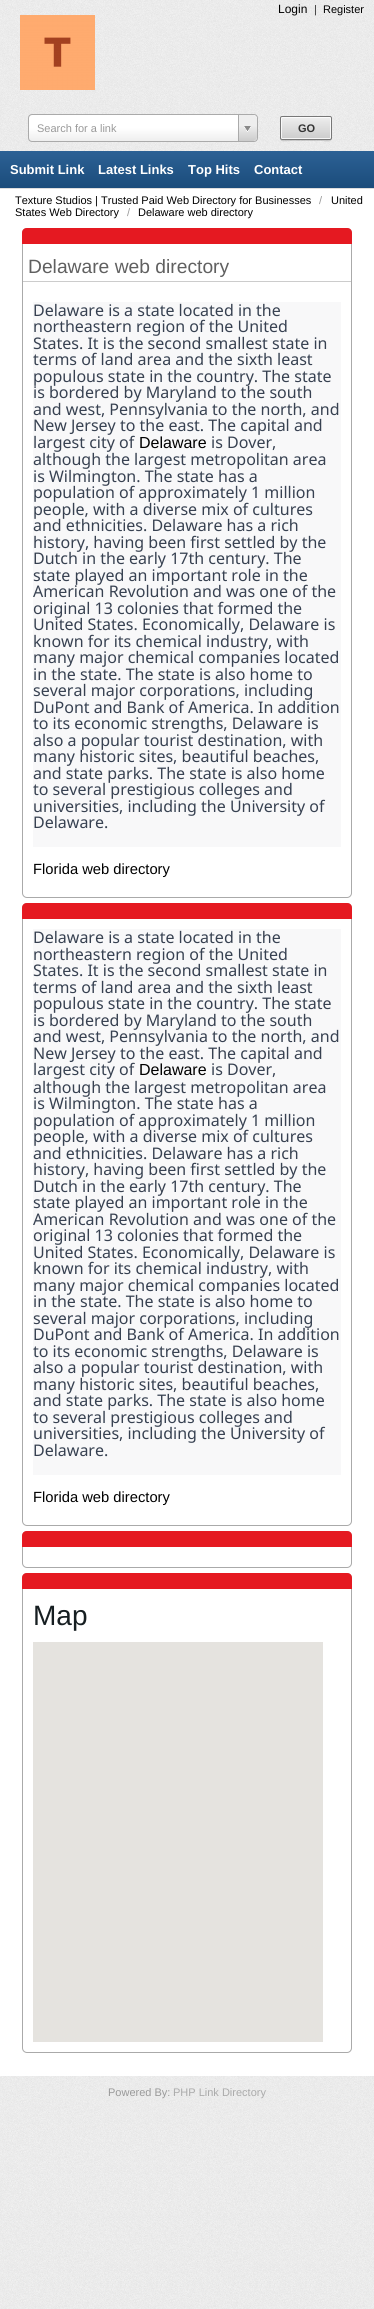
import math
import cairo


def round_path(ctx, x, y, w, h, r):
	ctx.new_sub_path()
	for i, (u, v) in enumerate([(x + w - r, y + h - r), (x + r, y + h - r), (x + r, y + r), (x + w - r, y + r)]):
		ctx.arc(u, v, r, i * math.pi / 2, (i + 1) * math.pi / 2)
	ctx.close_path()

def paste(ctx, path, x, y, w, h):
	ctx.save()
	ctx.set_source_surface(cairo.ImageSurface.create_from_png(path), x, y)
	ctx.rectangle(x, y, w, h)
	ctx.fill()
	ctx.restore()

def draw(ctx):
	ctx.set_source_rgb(1, 1, 1)
	ctx.paint()
	paste(ctx, 'media/1.png', 0, 0, 374, 2309)
	ctx.select_font_face('Liberation Sans')
	ctx.set_font_size(12)
	ctx.set_source_rgb(0, 0, 0)
	ctx.move_to(278, 13)
	ctx.show_text('Login')
	ctx.set_font_size(11)
	ctx.set_source_rgb(0.2, 0.2, 0.2)
	ctx.move_to(314, 13)
	ctx.show_text('|')
	ctx.set_source_rgb(0, 0, 0)
	ctx.move_to(323, 13)
	ctx.show_text('Register')
	paste(ctx, 'media/2.png', 20, 15, 75, 75)
	gradient = cairo.LinearGradient(29, 141, 29, 115)
	gradient.add_color_stop_rgba(0, 0.933, 0.933, 0.933, 1)
	gradient.add_color_stop_rgba(0.5, 1, 1, 1, 1)
	ctx.set_source(gradient)
	round_path(ctx, 29, 115, 228, 26, 3)
	ctx.fill()
	round_path(ctx, 28.5, 114.5, 229, 27, 3.5)
	ctx.set_source_rgb(0.667, 0.667, 0.667)
	ctx.set_line_width(1)
	ctx.stroke()
	ctx.set_source_rgb(0.6, 0.6, 0.6)
	ctx.move_to(37, 132)
	ctx.show_text('Search for a link')
	ctx.save()
	round_path(ctx, 29, 115, 228, 26, 3)
	ctx.clip()
	gradient = cairo.LinearGradient(239, 141, 239, 115)
	gradient.add_color_stop_rgba(0, 0.8, 0.8, 0.8, 1)
	gradient.add_color_stop_rgba(0.6, 0.933, 0.933, 0.933, 1)
	ctx.set_source(gradient)
	ctx.new_path()
	ctx.move_to(238, 115)
	ctx.line_to(253, 115)
	ctx.curve_to(255, 115, 257, 117, 257, 119)
	ctx.line_to(257, 137)
	ctx.curve_to(257, 139, 255, 141, 253, 141)
	ctx.line_to(238, 141)
	ctx.close_path()
	ctx.fill()
	ctx.restore()
	ctx.set_source_rgb(0.667, 0.667, 0.667)
	ctx.rectangle(238, 115, 1, 26)
	ctx.fill()
	paste(ctx, 'media/3.png', 244, 126, 7, 6)
	ctx.set_source_rgba(0, 0, 0, 0.15)
	ctx.new_path()
	ctx.move_to(280, 138)
	ctx.curve_to(280, 143, 286, 141, 290, 141)
	ctx.line_to(322, 141)
	ctx.curve_to(326, 141, 332, 143, 332, 138)
	ctx.curve_to(332, 139, 331, 140, 330, 140)
	ctx.line_to(282, 140)
	ctx.curve_to(281, 140, 280, 139, 280, 138)
	ctx.close_path()
	ctx.fill()
	ctx.save()
	round_path(ctx, 280, 116, 52, 24, 2)
	ctx.clip()
	gradient = cairo.LinearGradient(306, 117, 306, 139)
	gradient.add_color_stop_rgba(0, 0.933, 0.933, 0.933, 1)
	gradient.add_color_stop_rgba(1, 0.8, 0.8, 0.8, 1)
	ctx.set_source(gradient)
	ctx.rectangle(280, 117, 52, 22)
	ctx.fill()
	ctx.restore()
	round_path(ctx, 281.5, 117.5, 49, 21, 0.5)
	ctx.set_source_rgba(1, 1, 1, 0.8)
	ctx.stroke()
	round_path(ctx, 280.5, 116.5, 51, 23, 1.5)
	ctx.set_source_rgb(0.467, 0.467, 0.467)
	ctx.stroke()
	ctx.select_font_face('Liberation Sans', cairo.FONT_SLANT_NORMAL, cairo.FONT_WEIGHT_BOLD)
	ctx.set_source_rgb(0.2, 0.2, 0.2)
	ctx.move_to(298, 132)
	ctx.show_text('GO')
	gradient = cairo.LinearGradient(187, 151, 187, 188)
	gradient.add_color_stop_rgba(0, 0.173, 0.38, 0.584, 1)
	gradient.add_color_stop_rgba(1, 0.106, 0.298, 0.482, 1)
	ctx.set_source(gradient)
	ctx.rectangle(0, 151, 374, 37)
	ctx.fill()
	ctx.set_font_size(13)
	ctx.set_source_rgb(1, 1, 1)
	for x, y, s in [
		(10, 174, 'Submit Link'),
		(98, 174, 'Latest Links'),
		(188, 174, 'Top Hits'),
		(254, 174, 'Contact'),
	]:
		ctx.move_to(x, y)
		ctx.show_text(s)
	ctx.rectangle(0, 189, 374, 1887)
	ctx.fill()
	ctx.set_source_rgb(0.867, 0.867, 0.867)
	ctx.rectangle(0, 188, 374, 1)
	ctx.fill()
	ctx.select_font_face('Liberation Sans')
	ctx.set_font_size(11)
	ctx.set_source_rgb(0, 0, 0)
	ctx.move_to(15, 204)
	ctx.show_text('Texture Studios | Trusted Paid Web Directory for Businesses')
	ctx.set_source_rgb(0.6, 0.6, 0.6)
	ctx.move_to(319, 204)
	ctx.show_text('/')
	ctx.set_source_rgb(0, 0, 0)
	ctx.move_to(331, 204)
	ctx.show_text('United')
	ctx.move_to(15, 216)
	ctx.show_text('States Web Directory')
	ctx.set_source_rgb(0.6, 0.6, 0.6)
	ctx.move_to(127, 216)
	ctx.show_text('/')
	ctx.set_source_rgb(0, 0, 0)
	ctx.move_to(138, 216)
	ctx.show_text('Delaware web directory')
	round_path(ctx, 22.5, 228.5, 329, 669, 4.5)
	ctx.set_source_rgb(0.667, 0.667, 0.667)
	ctx.stroke()
	ctx.set_source_rgb(0.898, 0.098, 0.129)
	ctx.new_path()
	ctx.move_to(27, 228)
	ctx.line_to(347, 228)
	ctx.curve_to(350, 228, 352, 230, 352, 233)
	ctx.line_to(352, 244)
	ctx.line_to(22, 244)
	ctx.line_to(22, 233)
	ctx.curve_to(22, 230, 24, 228, 27, 228)
	ctx.close_path()
	ctx.fill()
	ctx.set_source_rgb(0.8, 0.8, 0.8)
	ctx.rectangle(23, 281, 328, 1)
	ctx.fill()
	ctx.set_font_size(19.25)
	ctx.set_source_rgb(0.376, 0.376, 0.376)
	ctx.move_to(28, 273)
	ctx.show_text('Delaware web directory')
	ctx.set_source_rgb(0.969, 0.969, 0.973)
	ctx.rectangle(33, 302, 308, 545)
	ctx.fill()
	ctx.select_font_face('Noto Sans')
	ctx.set_font_size(16)
	ctx.set_source_rgb(0.216, 0.255, 0.318)
	for x, y, s in [
		(33, 316, 'Delaware is a state located in the'),
		(33, 332, 'northeastern region of the United'),
		(33, 349, 'States. It is the second smallest state in'),
		(33, 365, 'terms of land area and the sixth least'),
		(33, 382, 'populous state in the country. The state'),
		(33, 398, 'is bordered by Maryland to the south'),
		(33, 415, 'and west, Pennsylvania to the north, and'),
		(33, 431, 'New Jersey to the east. The capital and'),
		(33, 448, 'largest city of'),
	]:
		ctx.move_to(x, y)
		ctx.show_text(s)
	ctx.select_font_face('Liberation Sans')
	ctx.set_source_rgb(0, 0, 0)
	ctx.move_to(139, 448)
	ctx.show_text('Delaware')
	ctx.select_font_face('Noto Sans')
	ctx.set_source_rgb(0.216, 0.255, 0.318)
	for x, y, s in [
		(211, 448, 'is Dover,'),
		(33, 465, 'although the largest metropolitan area'),
		(33, 482, 'is Wilmington. The state has a'),
		(33, 498, 'population of approximately 1 million'),
		(33, 515, 'people, with a diverse mix of cultures'),
		(33, 531, 'and ethnicities. Delaware has a rich'),
		(33, 548, 'history, having been first settled by the'),
		(33, 564, 'Dutch in the early 17th century. The'),
		(33, 581, 'state played an important role in the'),
		(33, 597, 'American Revolution and was one of the'),
		(33, 614, 'original 13 colonies that formed the'),
		(33, 630, 'United States. Economically, Delaware is'),
		(33, 647, 'known for its chemical industry, with'),
		(33, 663, 'many major chemical companies located'),
		(33, 680, 'in the state. The state is also home to'),
		(33, 696, 'several major corporations, including'),
		(33, 713, 'DuPont and Bank of America. In addition'),
		(33, 729, 'to its economic strengths, Delaware is'),
		(33, 746, 'also a popular tourist destination, with'),
		(33, 762, 'many historic sites, beautiful beaches,'),
		(33, 779, 'and state parks. The state is also home'),
		(33, 795, 'to several prestigious colleges and'),
		(33, 812, 'universities, including the University of'),
		(33, 828, 'Delaware.'),
	]:
		ctx.move_to(x, y)
		ctx.show_text(s)
	ctx.select_font_face('Liberation Sans')
	ctx.set_font_size(14.75)
	ctx.set_source_rgb(0, 0, 0)
	ctx.move_to(33, 874)
	ctx.show_text('Florida web directory')
	round_path(ctx, 22.5, 903.5, 329, 622, 4.5)
	ctx.set_source_rgb(0.667, 0.667, 0.667)
	ctx.stroke()
	ctx.set_source_rgb(0.898, 0.098, 0.129)
	ctx.new_path()
	ctx.move_to(27, 903)
	ctx.line_to(347, 903)
	ctx.curve_to(350, 903, 352, 905, 352, 908)
	ctx.line_to(352, 919)
	ctx.line_to(22, 919)
	ctx.line_to(22, 908)
	ctx.curve_to(22, 905, 24, 903, 27, 903)
	ctx.close_path()
	ctx.fill()
	ctx.set_source_rgb(0.969, 0.969, 0.973)
	ctx.rectangle(33, 929, 308, 546)
	ctx.fill()
	ctx.select_font_face('Noto Sans')
	ctx.set_font_size(16)
	ctx.set_source_rgb(0.216, 0.255, 0.318)
	for x, y, s in [
		(33, 943, 'Delaware is a state located in the'),
		(33, 960, 'northeastern region of the United'),
		(33, 976, 'States. It is the second smallest state in'),
		(33, 993, 'terms of land area and the sixth least'),
		(33, 1009, 'populous state in the country. The state'),
		(33, 1026, 'is bordered by Maryland to the south'),
		(33, 1042, 'and west, Pennsylvania to the north, and'),
		(33, 1059, 'New Jersey to the east. The capital and'),
		(33, 1075, 'largest city of'),
	]:
		ctx.move_to(x, y)
		ctx.show_text(s)
	ctx.select_font_face('Liberation Sans')
	ctx.set_source_rgb(0, 0, 0)
	ctx.move_to(139, 1075)
	ctx.show_text('Delaware')
	ctx.select_font_face('Noto Sans')
	ctx.set_source_rgb(0.216, 0.255, 0.318)
	for x, y, s in [
		(211, 1075, 'is Dover,'),
		(33, 1093, 'although the largest metropolitan area'),
		(33, 1109, 'is Wilmington. The state has a'),
		(33, 1126, 'population of approximately 1 million'),
		(33, 1142, 'people, with a diverse mix of cultures'),
		(33, 1159, 'and ethnicities. Delaware has a rich'),
		(33, 1175, 'history, having been first settled by the'),
		(33, 1192, 'Dutch in the early 17th century. The'),
		(33, 1208, 'state played an important role in the'),
		(33, 1225, 'American Revolution and was one of the'),
		(33, 1241, 'original 13 colonies that formed the'),
		(33, 1258, 'United States. Economically, Delaware is'),
		(33, 1274, 'known for its chemical industry, with'),
		(33, 1291, 'many major chemical companies located'),
		(33, 1307, 'in the state. The state is also home to'),
		(33, 1324, 'several major corporations, including'),
		(33, 1340, 'DuPont and Bank of America. In addition'),
		(33, 1357, 'to its economic strengths, Delaware is'),
		(33, 1373, 'also a popular tourist destination, with'),
		(33, 1390, 'many historic sites, beautiful beaches,'),
		(33, 1406, 'and state parks. The state is also home'),
		(33, 1423, 'to several prestigious colleges and'),
		(33, 1439, 'universities, including the University of'),
		(33, 1456, 'Delaware.'),
	]:
		ctx.move_to(x, y)
		ctx.show_text(s)
	ctx.select_font_face('Liberation Sans')
	ctx.set_font_size(14.75)
	ctx.set_source_rgb(0, 0, 0)
	ctx.move_to(33, 1502)
	ctx.show_text('Florida web directory')
	round_path(ctx, 22.5, 1531.5, 329, 36, 4.5)
	ctx.set_source_rgb(0.667, 0.667, 0.667)
	ctx.stroke()
	ctx.set_source_rgb(0.898, 0.098, 0.129)
	ctx.new_path()
	ctx.move_to(27, 1531)
	ctx.line_to(347, 1531)
	ctx.curve_to(350, 1531, 352, 1533, 352, 1536)
	ctx.line_to(352, 1547)
	ctx.line_to(22, 1547)
	ctx.line_to(22, 1536)
	ctx.curve_to(22, 1533, 24, 1531, 27, 1531)
	ctx.close_path()
	ctx.fill()
	round_path(ctx, 22.5, 1573.5, 329, 479, 4.5)
	ctx.set_source_rgb(0.667, 0.667, 0.667)
	ctx.stroke()
	ctx.set_source_rgb(0.898, 0.098, 0.129)
	ctx.new_path()
	ctx.move_to(27, 1573)
	ctx.line_to(347, 1573)
	ctx.curve_to(350, 1573, 352, 1575, 352, 1578)
	ctx.line_to(352, 1589)
	ctx.line_to(22, 1589)
	ctx.line_to(22, 1578)
	ctx.curve_to(22, 1575, 24, 1573, 27, 1573)
	ctx.close_path()
	ctx.fill()
	ctx.set_font_size(28)
	ctx.set_source_rgb(0.086, 0.118, 0.129)
	ctx.move_to(33, 1625)
	ctx.show_text('Map')
	ctx.set_source_rgb(0.898, 0.89, 0.875)
	ctx.rectangle(33, 1642, 290, 400)
	ctx.fill()
	ctx.set_font_size(11)
	ctx.set_source_rgb(0.6, 0.6, 0.6)
	ctx.move_to(108, 2096)
	ctx.show_text('Powered By:')
	ctx.set_source_rgb(0.667, 0.667, 0.667)
	ctx.move_to(173, 2096)
	ctx.show_text('PHP Link Directory')


surface = cairo.ImageSurface(cairo.FORMAT_RGB24, 374, 2309)
ctx = cairo.Context(surface)
options = cairo.FontOptions()
options.set_hint_metrics(cairo.HINT_METRICS_OFF)
options.set_hint_style(cairo.HINT_STYLE_NONE)
ctx.set_font_options(options)
ctx.set_miter_limit(4)
draw(ctx)
surface.write_to_png('image.png')
